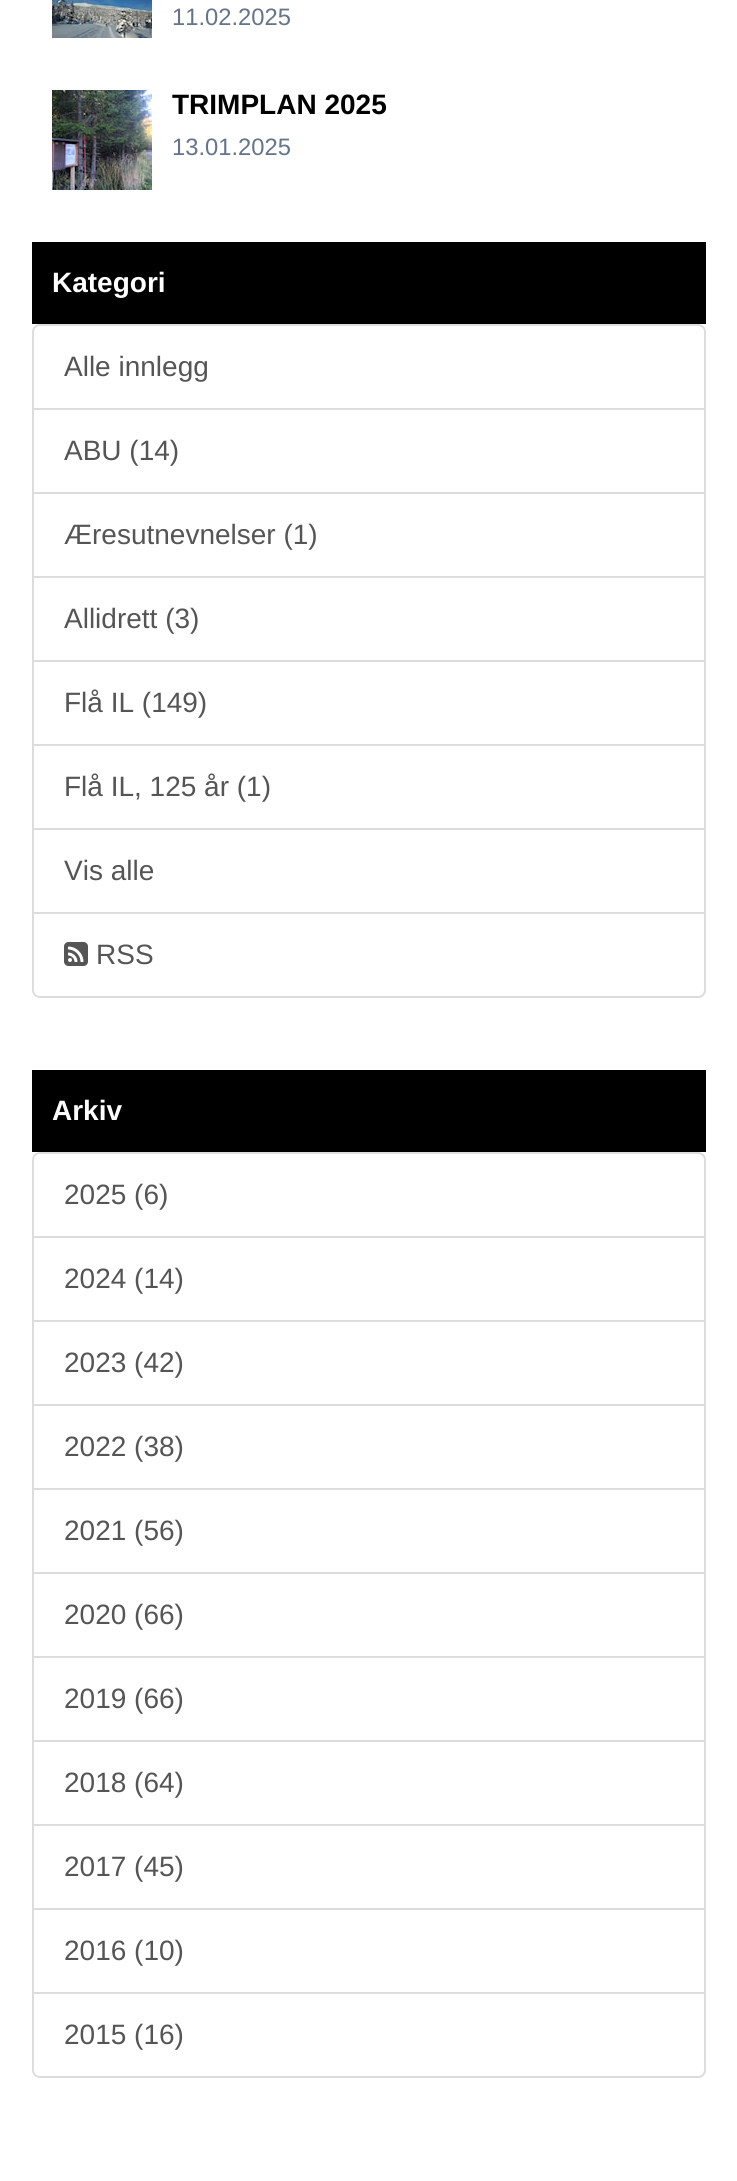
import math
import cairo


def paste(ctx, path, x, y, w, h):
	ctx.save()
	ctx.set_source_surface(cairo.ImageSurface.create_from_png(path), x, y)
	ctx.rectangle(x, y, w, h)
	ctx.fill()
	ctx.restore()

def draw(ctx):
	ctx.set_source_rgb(1, 1, 1)
	ctx.paint()
	paste(ctx, 'media/1.png', 52, 0, 100, 40)
	ctx.select_font_face('Liberation Sans')
	ctx.set_font_size(23.75)
	ctx.set_source_rgb(0.392, 0.455, 0.545)
	ctx.move_to(172, 25)
	ctx.show_text('11.02.2025')
	paste(ctx, 'media/2.png', 52, 90, 100, 100)
	ctx.select_font_face('Liberation Sans', cairo.FONT_SLANT_NORMAL, cairo.FONT_WEIGHT_BOLD)
	ctx.set_font_size(28)
	ctx.set_source_rgb(0, 0, 0)
	ctx.move_to(172, 114)
	ctx.show_text('TRIMPLAN 2025')
	ctx.select_font_face('Liberation Sans')
	ctx.set_font_size(23.75)
	ctx.set_source_rgb(0.392, 0.455, 0.545)
	ctx.move_to(172, 155)
	ctx.show_text('13.01.2025')
	ctx.set_source_rgb(0, 0, 0)
	ctx.rectangle(32, 242, 674, 82)
	ctx.fill()
	ctx.select_font_face('Liberation Sans', cairo.FONT_SLANT_NORMAL, cairo.FONT_WEIGHT_BOLD)
	ctx.set_font_size(28)
	ctx.set_source_rgb(1, 1, 1)
	ctx.move_to(52, 292)
	ctx.show_text('Kategori')
	ctx.new_path()
	ctx.move_to(40, 325)
	ctx.line_to(698, 325)
	ctx.curve_to(702, 325, 705, 328, 705, 332)
	ctx.line_to(705, 409)
	ctx.line_to(33, 409)
	ctx.line_to(33, 332)
	ctx.curve_to(33, 328, 36, 325, 40, 325)
	ctx.close_path()
	ctx.set_source_rgb(0.867, 0.867, 0.867)
	ctx.stroke()
	ctx.select_font_face('Liberation Sans')
	ctx.set_source_rgb(0.333, 0.333, 0.333)
	ctx.move_to(64, 376)
	ctx.show_text('Alle innlegg')
	ctx.rectangle(33, 409, 672, 84)
	ctx.set_source_rgb(0.867, 0.867, 0.867)
	ctx.stroke()
	ctx.set_source_rgb(0.333, 0.333, 0.333)
	ctx.move_to(64, 460)
	ctx.show_text('ABU (14)')
	ctx.rectangle(33, 493, 672, 84)
	ctx.set_source_rgb(0.867, 0.867, 0.867)
	ctx.stroke()
	ctx.set_source_rgb(0.333, 0.333, 0.333)
	ctx.move_to(64, 544)
	ctx.show_text('Æresutnevnelser (1)')
	ctx.rectangle(33, 577, 672, 84)
	ctx.set_source_rgb(0.867, 0.867, 0.867)
	ctx.stroke()
	ctx.set_source_rgb(0.333, 0.333, 0.333)
	ctx.move_to(64, 628)
	ctx.show_text('Allidrett (3)')
	ctx.rectangle(33, 661, 672, 84)
	ctx.set_source_rgb(0.867, 0.867, 0.867)
	ctx.stroke()
	ctx.set_source_rgb(0.333, 0.333, 0.333)
	ctx.move_to(64, 712)
	ctx.show_text('Flå IL (149)')
	ctx.rectangle(33, 745, 672, 84)
	ctx.set_source_rgb(0.867, 0.867, 0.867)
	ctx.stroke()
	ctx.set_source_rgb(0.333, 0.333, 0.333)
	ctx.move_to(64, 796)
	ctx.show_text('Flå IL, 125 år (1)')
	ctx.rectangle(33, 829, 672, 84)
	ctx.set_source_rgb(0.867, 0.867, 0.867)
	ctx.stroke()
	ctx.set_source_rgb(0.333, 0.333, 0.333)
	ctx.move_to(64, 880)
	ctx.show_text('Vis alle')
	ctx.set_source_rgb(1, 1, 1)
	ctx.new_path()
	ctx.move_to(33, 913)
	ctx.line_to(705, 913)
	ctx.line_to(705, 990)
	ctx.curve_to(705, 994, 702, 997, 698, 997)
	ctx.line_to(40, 997)
	ctx.curve_to(36, 997, 33, 994, 33, 990)
	ctx.close_path()
	ctx.fill_preserve()
	ctx.set_source_rgb(0.867, 0.867, 0.867)
	ctx.stroke()
	paste(ctx, 'media/3.png', 64, 942, 24, 24)
	ctx.set_source_rgb(0.333, 0.333, 0.333)
	ctx.move_to(96, 964)
	ctx.show_text('RSS')
	ctx.set_source_rgb(0, 0, 0)
	ctx.rectangle(32, 1070, 674, 82)
	ctx.fill()
	ctx.select_font_face('Liberation Sans', cairo.FONT_SLANT_NORMAL, cairo.FONT_WEIGHT_BOLD)
	ctx.set_source_rgb(1, 1, 1)
	ctx.move_to(52, 1120)
	ctx.show_text('Arkiv')
	ctx.new_path()
	ctx.move_to(40, 1153)
	ctx.line_to(698, 1153)
	ctx.curve_to(702, 1153, 705, 1156, 705, 1160)
	ctx.line_to(705, 1237)
	ctx.line_to(33, 1237)
	ctx.line_to(33, 1160)
	ctx.curve_to(33, 1156, 36, 1153, 40, 1153)
	ctx.close_path()
	ctx.set_source_rgb(0.867, 0.867, 0.867)
	ctx.stroke()
	ctx.select_font_face('Liberation Sans')
	ctx.set_source_rgb(0.333, 0.333, 0.333)
	ctx.move_to(64, 1204)
	ctx.show_text('2025 (6)')
	ctx.rectangle(33, 1237, 672, 84)
	ctx.set_source_rgb(0.867, 0.867, 0.867)
	ctx.stroke()
	ctx.set_source_rgb(0.333, 0.333, 0.333)
	ctx.move_to(64, 1288)
	ctx.show_text('2024 (14)')
	ctx.rectangle(33, 1321, 672, 84)
	ctx.set_source_rgb(0.867, 0.867, 0.867)
	ctx.stroke()
	ctx.set_source_rgb(0.333, 0.333, 0.333)
	ctx.move_to(64, 1372)
	ctx.show_text('2023 (42)')
	ctx.rectangle(33, 1405, 672, 84)
	ctx.set_source_rgb(0.867, 0.867, 0.867)
	ctx.stroke()
	ctx.set_source_rgb(0.333, 0.333, 0.333)
	ctx.move_to(64, 1456)
	ctx.show_text('2022 (38)')
	ctx.rectangle(33, 1489, 672, 84)
	ctx.set_source_rgb(0.867, 0.867, 0.867)
	ctx.stroke()
	ctx.set_source_rgb(0.333, 0.333, 0.333)
	ctx.move_to(64, 1540)
	ctx.show_text('2021 (56)')
	ctx.rectangle(33, 1573, 672, 84)
	ctx.set_source_rgb(0.867, 0.867, 0.867)
	ctx.stroke()
	ctx.set_source_rgb(0.333, 0.333, 0.333)
	ctx.move_to(64, 1624)
	ctx.show_text('2020 (66)')
	ctx.rectangle(33, 1657, 672, 84)
	ctx.set_source_rgb(0.867, 0.867, 0.867)
	ctx.stroke()
	ctx.set_source_rgb(0.333, 0.333, 0.333)
	ctx.move_to(64, 1708)
	ctx.show_text('2019 (66)')
	ctx.rectangle(33, 1741, 672, 84)
	ctx.set_source_rgb(0.867, 0.867, 0.867)
	ctx.stroke()
	ctx.set_source_rgb(0.333, 0.333, 0.333)
	ctx.move_to(64, 1792)
	ctx.show_text('2018 (64)')
	ctx.rectangle(33, 1825, 672, 84)
	ctx.set_source_rgb(0.867, 0.867, 0.867)
	ctx.stroke()
	ctx.set_source_rgb(0.333, 0.333, 0.333)
	ctx.move_to(64, 1876)
	ctx.show_text('2017 (45)')
	ctx.rectangle(33, 1909, 672, 84)
	ctx.set_source_rgb(0.867, 0.867, 0.867)
	ctx.stroke()
	ctx.set_source_rgb(0.333, 0.333, 0.333)
	ctx.move_to(64, 1960)
	ctx.show_text('2016 (10)')
	ctx.set_source_rgb(1, 1, 1)
	ctx.new_path()
	ctx.move_to(33, 1993)
	ctx.line_to(705, 1993)
	ctx.line_to(705, 2070)
	ctx.curve_to(705, 2074, 702, 2077, 698, 2077)
	ctx.line_to(40, 2077)
	ctx.curve_to(36, 2077, 33, 2074, 33, 2070)
	ctx.close_path()
	ctx.fill_preserve()
	ctx.set_source_rgb(0.867, 0.867, 0.867)
	ctx.stroke()
	ctx.set_source_rgb(0.333, 0.333, 0.333)
	ctx.move_to(64, 2044)
	ctx.show_text('2015 (16)')


surface = cairo.ImageSurface(cairo.FORMAT_RGB24, 737, 2181)
ctx = cairo.Context(surface)
options = cairo.FontOptions()
options.set_hint_metrics(cairo.HINT_METRICS_OFF)
options.set_hint_style(cairo.HINT_STYLE_NONE)
ctx.set_font_options(options)
ctx.set_miter_limit(4)
draw(ctx)
surface.write_to_png('image.png')
